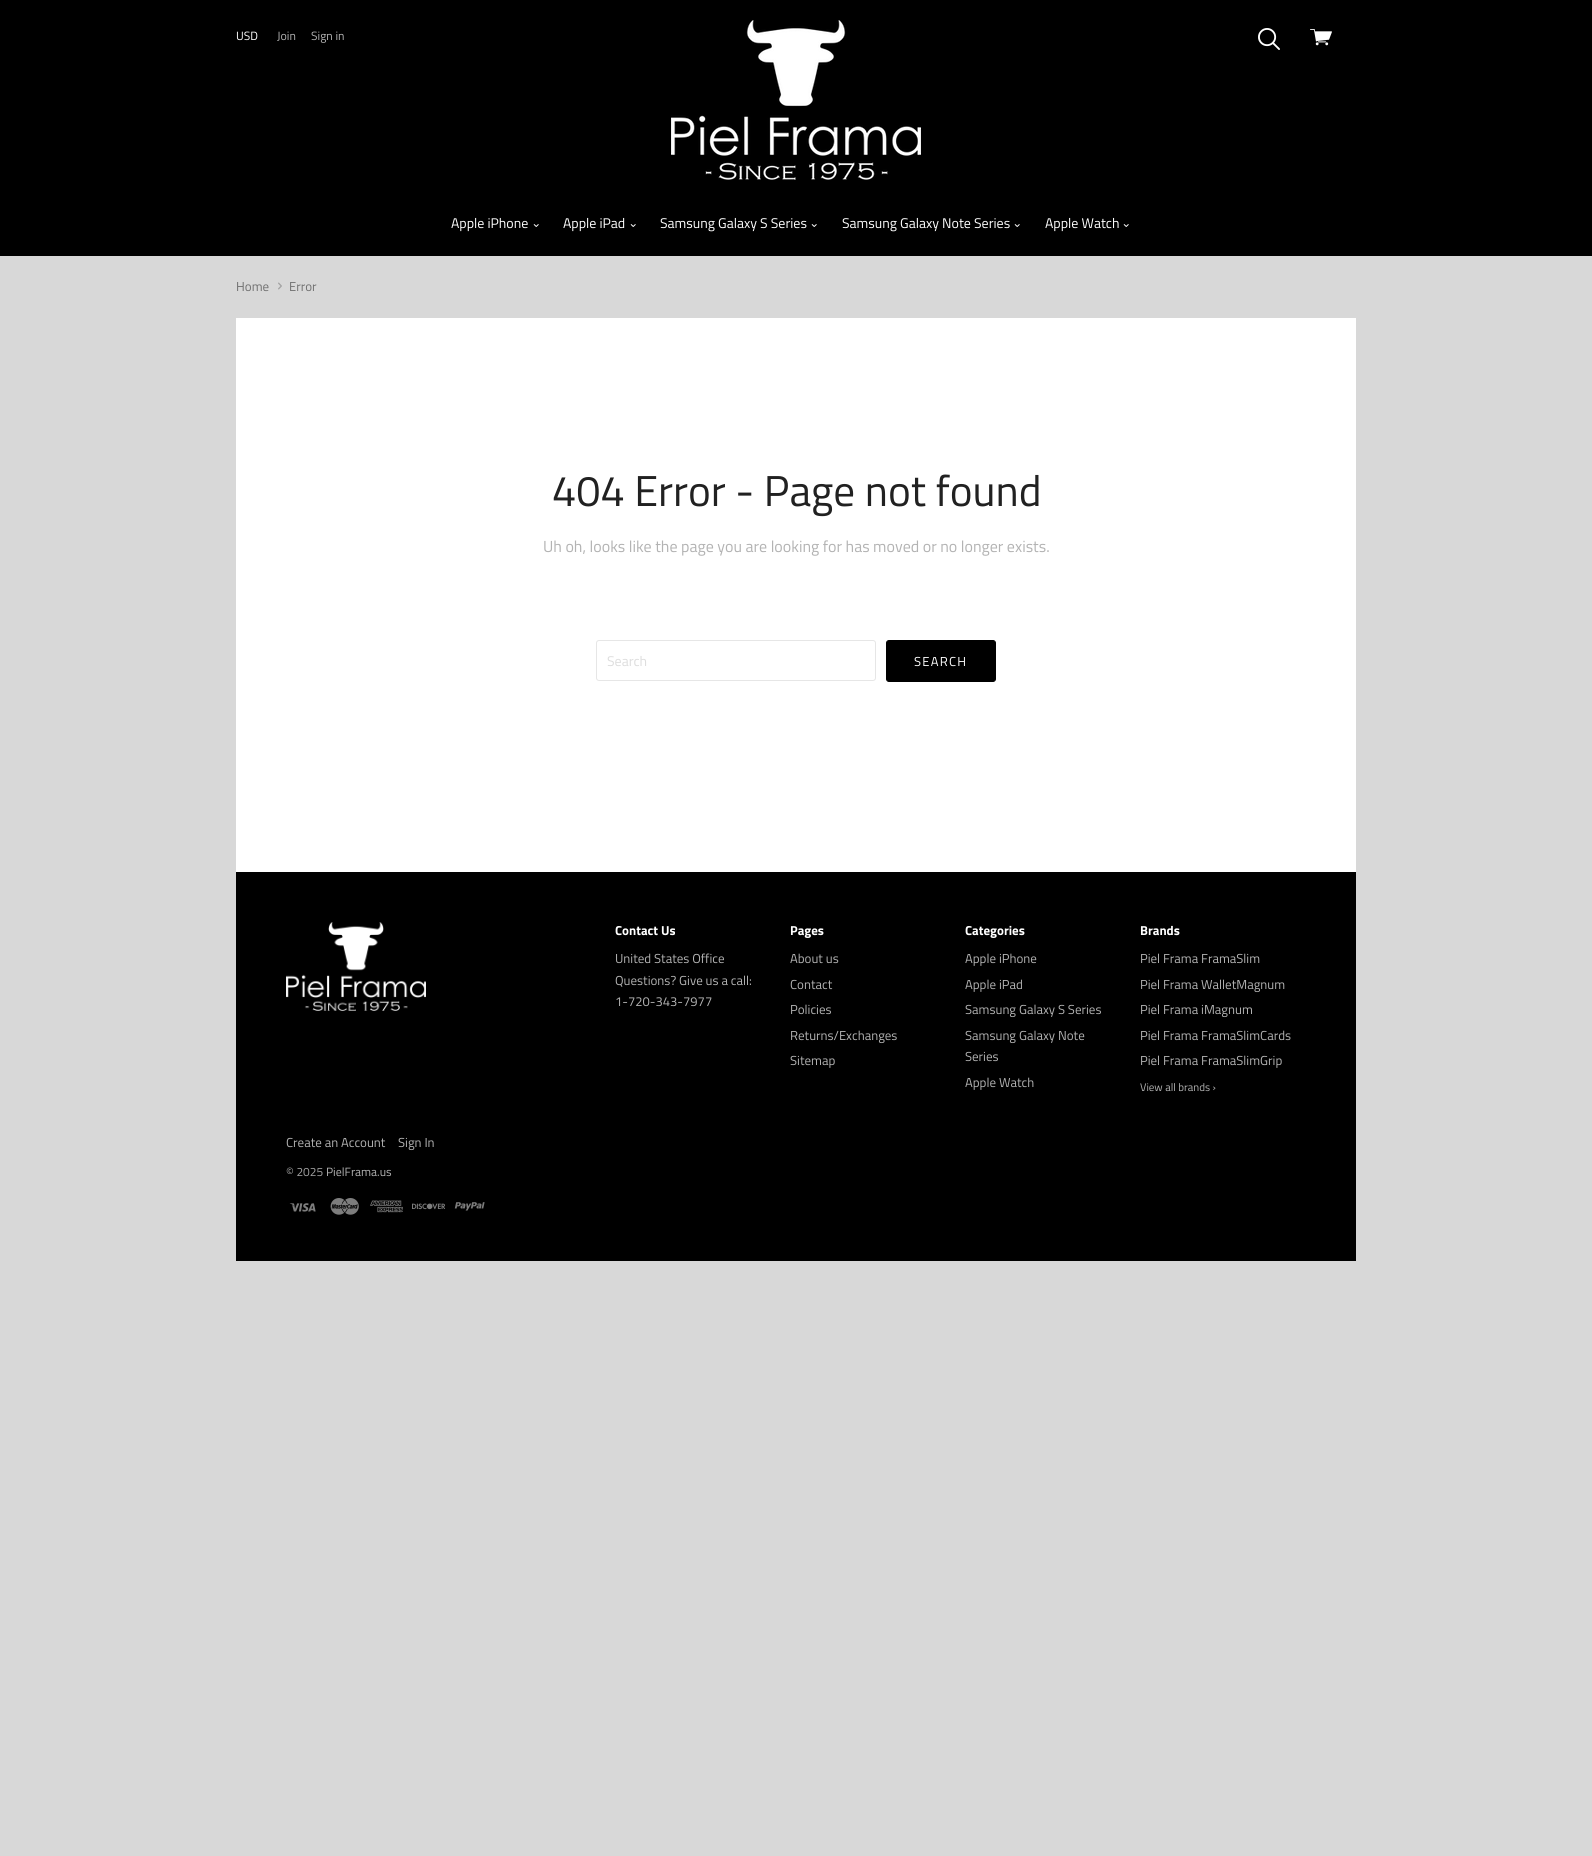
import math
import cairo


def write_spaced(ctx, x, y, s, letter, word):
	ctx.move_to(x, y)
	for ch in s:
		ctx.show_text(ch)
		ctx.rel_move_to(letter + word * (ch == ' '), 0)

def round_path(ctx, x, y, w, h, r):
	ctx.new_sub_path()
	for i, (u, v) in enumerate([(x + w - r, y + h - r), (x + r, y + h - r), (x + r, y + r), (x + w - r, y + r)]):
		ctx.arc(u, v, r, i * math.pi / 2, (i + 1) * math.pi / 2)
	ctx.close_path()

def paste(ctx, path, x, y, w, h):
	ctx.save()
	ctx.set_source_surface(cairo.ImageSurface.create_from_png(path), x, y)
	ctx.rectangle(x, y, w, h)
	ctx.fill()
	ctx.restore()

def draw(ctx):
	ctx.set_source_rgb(0.847, 0.847, 0.847)
	ctx.paint()
	ctx.set_source_rgb(0, 0, 0)
	ctx.rectangle(0, 0, 1592, 256)
	ctx.fill()
	paste(ctx, 'media/1.png', 671, 20, 250, 160)
	paste(ctx, 'media/2.png', 1310, 29, 22, 17)
	ctx.select_font_face('Titillium Web')
	ctx.set_font_size(12)
	ctx.set_source_rgb(1, 1, 1)
	ctx.move_to(236, 40)
	ctx.show_text('USD')
	ctx.set_source_rgb(0.702, 0.702, 0.702)
	ctx.move_to(277, 40)
	ctx.show_text('Join')
	ctx.move_to(311, 40)
	ctx.show_text('Sign in')
	ctx.set_font_size(14)
	ctx.set_source_rgb(1, 1, 1)
	ctx.move_to(451, 228)
	ctx.show_text('Apple iPhone')
	paste(ctx, 'media/3.png', 533, 224, 6, 3)
	ctx.move_to(563, 228)
	ctx.show_text('Apple iPad')
	paste(ctx, 'media/3.png', 630, 224, 6, 3)
	ctx.move_to(660, 228)
	ctx.show_text('Samsung Galaxy S Series')
	paste(ctx, 'media/3.png', 811, 224, 6, 3)
	ctx.move_to(842, 228)
	ctx.show_text('Samsung Galaxy Note Series')
	paste(ctx, 'media/3.png', 1014, 224, 6, 3)
	ctx.move_to(1045, 228)
	ctx.show_text('Apple Watch')
	paste(ctx, 'media/3.png', 1123, 224, 6, 3)
	paste(ctx, 'media/4.png', 1258, 28, 22, 22)
	ctx.set_font_size(13)
	ctx.set_source_rgb(0.435, 0.435, 0.435)
	ctx.move_to(236, 291)
	ctx.show_text('Home')
	paste(ctx, 'media/5.png', 278, 282, 4, 8)
	ctx.move_to(289, 291)
	ctx.show_text('Error')
	ctx.set_source_rgb(1, 1, 1)
	ctx.rectangle(236, 318, 1120, 554)
	ctx.fill()
	ctx.set_font_size(43.25)
	ctx.set_source_rgb(0.129, 0.129, 0.129)
	ctx.move_to(552, 506)
	ctx.show_text('404 Error - Page not found')
	ctx.set_font_size(16)
	ctx.set_source_rgb(0.702, 0.702, 0.702)
	ctx.move_to(543, 552)
	ctx.show_text('Uh oh, looks like the page you are looking for has moved or no longer exists.')
	round_path(ctx, 596.5, 640.5, 279, 40, 2.5)
	ctx.set_source_rgb(0.902, 0.902, 0.902)
	ctx.set_line_width(1)
	ctx.stroke()
	ctx.set_font_size(14)
	ctx.set_source_rgb(0.867, 0.867, 0.867)
	ctx.move_to(607, 666)
	ctx.show_text('Search')
	ctx.set_source_rgb(0, 0, 0)
	round_path(ctx, 886.5, 640.5, 109, 41, 2.5)
	ctx.fill_preserve()
	ctx.stroke()
	ctx.set_font_size(13)
	ctx.set_source_rgb(1, 1, 1)
	write_spaced(ctx, 914, 666, 'SEARCH', 1.25, 0)
	ctx.set_source_rgb(0, 0, 0)
	ctx.rectangle(236, 872, 1120, 389)
	ctx.fill()
	paste(ctx, 'media/6.png', 286, 922, 140, 89)
	ctx.select_font_face('Titillium Web', cairo.FONT_SLANT_NORMAL, cairo.FONT_WEIGHT_BOLD)
	ctx.set_source_rgb(1, 1, 1)
	ctx.move_to(615, 935)
	ctx.show_text('Contact Us')
	ctx.select_font_face('Titillium Web')
	ctx.set_source_rgb(0.702, 0.702, 0.702)
	for x, y, s in [
		(615, 963, 'United States Office'),
		(615, 985, 'Questions? Give us a call:'),
		(615, 1006, '1-720-343-7977'),
	]:
		ctx.move_to(x, y)
		ctx.show_text(s)
	ctx.select_font_face('Titillium Web', cairo.FONT_SLANT_NORMAL, cairo.FONT_WEIGHT_BOLD)
	ctx.set_source_rgb(1, 1, 1)
	ctx.move_to(790, 935)
	ctx.show_text('Pages')
	ctx.select_font_face('Titillium Web')
	ctx.set_source_rgb(0.702, 0.702, 0.702)
	for x, y, s in [
		(790, 963, 'About us'),
		(790, 989, 'Contact'),
		(790, 1014, 'Policies'),
		(790, 1040, 'Returns/Exchanges'),
		(790, 1065, 'Sitemap'),
	]:
		ctx.move_to(x, y)
		ctx.show_text(s)
	ctx.select_font_face('Titillium Web', cairo.FONT_SLANT_NORMAL, cairo.FONT_WEIGHT_BOLD)
	ctx.set_source_rgb(1, 1, 1)
	ctx.move_to(965, 935)
	ctx.show_text('Categories')
	ctx.select_font_face('Titillium Web')
	ctx.set_source_rgb(0.702, 0.702, 0.702)
	for x, y, s in [
		(965, 963, 'Apple iPhone'),
		(965, 989, 'Apple iPad'),
		(965, 1014, 'Samsung Galaxy S Series'),
		(965, 1040, 'Samsung Galaxy Note'),
		(965, 1061, 'Series'),
		(965, 1087, 'Apple Watch'),
	]:
		ctx.move_to(x, y)
		ctx.show_text(s)
	ctx.select_font_face('Titillium Web', cairo.FONT_SLANT_NORMAL, cairo.FONT_WEIGHT_BOLD)
	ctx.set_source_rgb(1, 1, 1)
	ctx.move_to(1140, 935)
	ctx.show_text('Brands')
	ctx.select_font_face('Titillium Web')
	ctx.set_source_rgb(0.702, 0.702, 0.702)
	for x, y, s in [
		(1140, 963, 'Piel Frama FramaSlim'),
		(1140, 989, 'Piel Frama WalletMagnum'),
		(1140, 1014, 'Piel Frama iMagnum'),
		(1140, 1040, 'Piel Frama FramaSlimCards'),
		(1140, 1065, 'Piel Frama FramaSlimGrip'),
	]:
		ctx.move_to(x, y)
		ctx.show_text(s)
	ctx.set_font_size(11)
	ctx.move_to(1140, 1091)
	ctx.show_text('View all brands ›')
	ctx.set_font_size(13)
	ctx.move_to(286, 1147)
	ctx.show_text('Create an Account')
	ctx.move_to(398, 1147)
	ctx.show_text('Sign In')
	ctx.set_font_size(12)
	ctx.set_source_rgb(0.631, 0.631, 0.631)
	ctx.move_to(286, 1176)
	ctx.show_text('© 2025')
	ctx.set_source_rgb(0.702, 0.702, 0.702)
	ctx.move_to(326, 1176)
	ctx.show_text('PielFrama.us')
	paste(ctx, 'media/7.png', 289, 1203, 27, 9)
	paste(ctx, 'media/8.png', 330, 1198, 29, 17)
	paste(ctx, 'media/9.png', 370, 1200, 33, 13)
	paste(ctx, 'media/10.png', 412, 1203, 33, 7)
	paste(ctx, 'media/11.png', 454, 1202, 31, 9)


surface = cairo.ImageSurface(cairo.FORMAT_RGB24, 1592, 1856)
ctx = cairo.Context(surface)
options = cairo.FontOptions()
options.set_hint_metrics(cairo.HINT_METRICS_OFF)
options.set_hint_style(cairo.HINT_STYLE_NONE)
ctx.set_font_options(options)
ctx.set_miter_limit(4)
draw(ctx)
surface.write_to_png('image.png')
